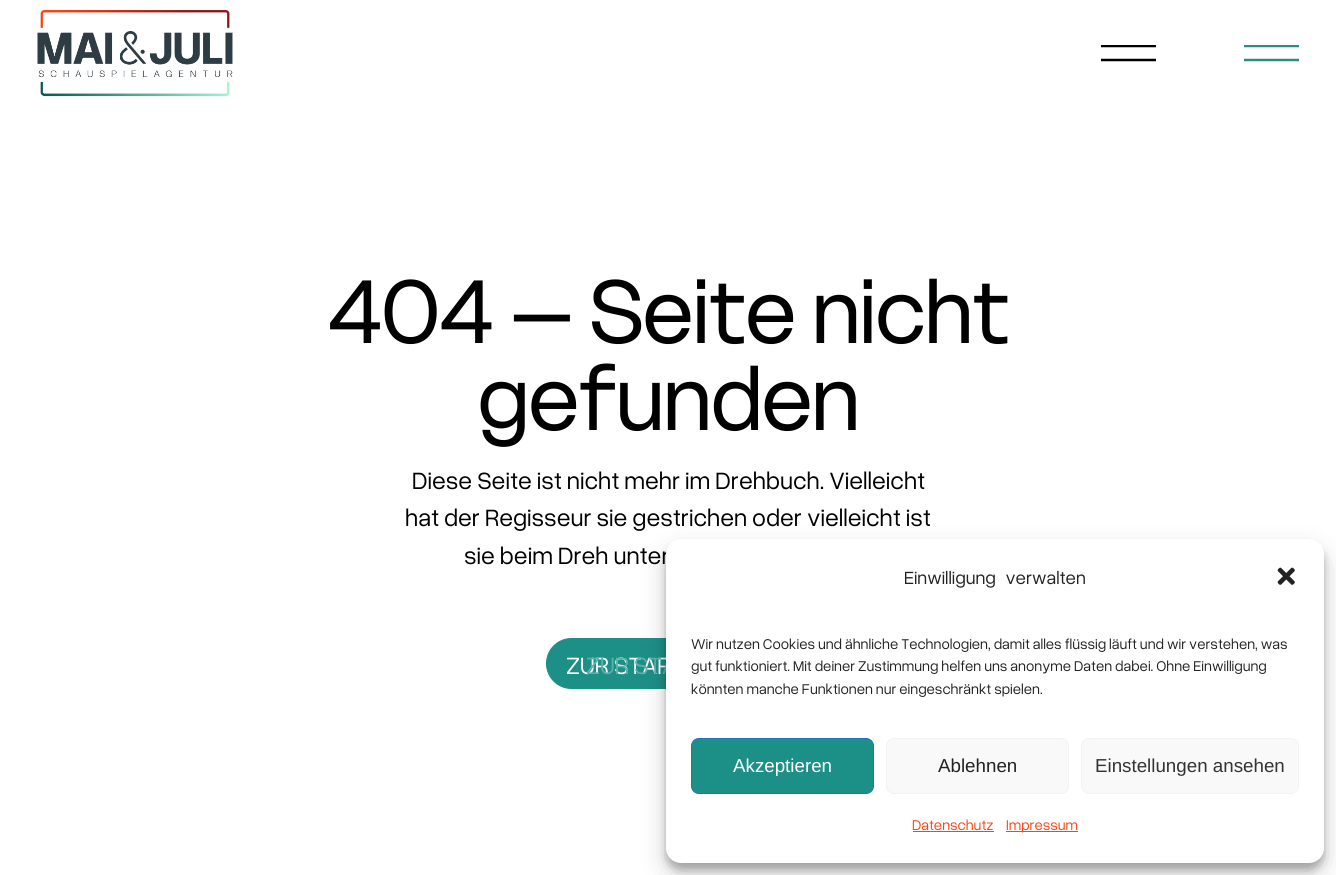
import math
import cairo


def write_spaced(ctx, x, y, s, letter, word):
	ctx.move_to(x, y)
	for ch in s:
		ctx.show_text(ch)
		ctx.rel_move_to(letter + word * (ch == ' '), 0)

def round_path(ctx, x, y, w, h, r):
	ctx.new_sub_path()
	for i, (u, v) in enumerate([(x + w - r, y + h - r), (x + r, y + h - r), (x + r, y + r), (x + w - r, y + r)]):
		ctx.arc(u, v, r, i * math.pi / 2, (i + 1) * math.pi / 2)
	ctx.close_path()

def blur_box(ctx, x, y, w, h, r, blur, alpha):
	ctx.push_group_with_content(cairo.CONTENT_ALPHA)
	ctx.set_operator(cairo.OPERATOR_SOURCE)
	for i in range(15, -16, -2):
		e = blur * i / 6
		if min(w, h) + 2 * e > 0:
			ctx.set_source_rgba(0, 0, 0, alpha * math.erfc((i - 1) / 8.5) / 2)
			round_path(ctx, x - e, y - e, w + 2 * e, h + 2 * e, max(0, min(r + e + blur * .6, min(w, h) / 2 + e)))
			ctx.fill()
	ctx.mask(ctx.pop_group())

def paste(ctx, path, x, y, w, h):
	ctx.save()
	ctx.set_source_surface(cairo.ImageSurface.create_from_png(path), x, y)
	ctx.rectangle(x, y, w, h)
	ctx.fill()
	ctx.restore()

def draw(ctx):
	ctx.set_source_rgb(1, 1, 1)
	ctx.paint()
	paste(ctx, 'media/1.png', 37, 10, 196, 87)
	ctx.save()
	ctx.rectangle(1101, 45, 55, 18)
	ctx.clip()
	ctx.new_path()
	ctx.move_to(1101, 46)
	ctx.line_to(1156, 46)
	ctx.set_source_rgb(0, 0, 0)
	ctx.set_line_width(2.5)
	ctx.stroke()
	ctx.restore()
	ctx.new_path()
	ctx.move_to(1101, 60)
	ctx.line_to(1156, 60)
	ctx.set_source_rgb(0, 0, 0)
	ctx.set_line_width(2.5)
	ctx.stroke()
	ctx.save()
	ctx.rectangle(1244, 45, 55, 18)
	ctx.clip()
	ctx.new_path()
	ctx.move_to(1244, 46)
	ctx.line_to(1299, 46)
	ctx.set_source_rgb(0.165, 0.557, 0.518)
	ctx.stroke()
	ctx.restore()
	ctx.new_path()
	ctx.move_to(1244, 60)
	ctx.line_to(1299, 60)
	ctx.set_source_rgb(0.165, 0.557, 0.518)
	ctx.stroke()
	ctx.select_font_face('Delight')
	ctx.set_font_size(87.5)
	ctx.set_source_rgb(0, 0, 0)
	ctx.move_to(328, 343)
	ctx.show_text('404 – Seite nicht')
	ctx.move_to(478, 430)
	ctx.show_text('gefunden')
	ctx.select_font_face('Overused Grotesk')
	ctx.set_font_size(25)
	for x, y, s in [
		(412, 489, 'Diese Seite ist nicht mehr im Drehbuch. Vielleicht'),
		(405, 526, 'hat der Regisseur sie gestrichen oder vielleicht ist'),
		(464, 564, 'sie beim Dreh unter'),
	]:
		ctx.move_to(x, y)
		ctx.show_text(s)
	ctx.set_source_rgb(0.11, 0.561, 0.529)
	round_path(ctx, 546.5, 638.5, 243, 50, 25)
	ctx.fill_preserve()
	ctx.set_line_width(1)
	ctx.stroke()
	ctx.set_source_rgb(1, 1, 1)
	ctx.move_to(566, 674)
	ctx.show_text('ZUR STAR')
	ctx.set_source_rgb(0.369, 0.69, 0.667)
	ctx.move_to(586, 674)
	ctx.show_text('ZUR STA')
	ctx.set_source_rgb(0, 0, 0)
	blur_box(ctx, 666, 546, 658, 324, 15, 4, 0.23)
	blur_box(ctx, 666, 551, 658, 324, 15, 12.5, 0.19)
	ctx.set_source_rgb(1, 1, 1)
	round_path(ctx, 666, 539, 658, 324, 15)
	ctx.fill()
	ctx.set_font_size(18.75)
	ctx.set_source_rgb(0.133, 0.133, 0.133)
	write_spaced(ctx, 904, 584, 'Einwilligung verwalten', 0, 6)
	paste(ctx, 'media/2.png', 1277, 567, 18, 18)
	ctx.set_font_size(15)
	for x, y, s in [
		(691, 649, 'Wir nutzen Cookies und ähnliche Technologien, damit alles flüssig läuft und wir verstehen, was'),
		(691, 671, 'gut funktioniert. Mit deiner Zustimmung helfen uns anonyme Daten dabei. Ohne Einwilligung'),
		(691, 694, 'könnten manche Funktionen nur eingeschränkt spielen.'),
	]:
		ctx.move_to(x, y)
		ctx.show_text(s)
	ctx.set_source_rgb(0.11, 0.561, 0.529)
	round_path(ctx, 691.5, 738.5, 182, 55, 7.5)
	ctx.fill_preserve()
	ctx.set_source_rgb(0.118, 0.451, 0.745)
	ctx.stroke()
	ctx.select_font_face('Liberation Sans')
	ctx.set_font_size(18.75)
	ctx.set_source_rgb(1, 1, 1)
	ctx.move_to(733, 772)
	ctx.show_text('Akzeptieren')
	ctx.set_source_rgb(0.976, 0.976, 0.976)
	round_path(ctx, 886.5, 738.5, 182, 55, 7.5)
	ctx.fill_preserve()
	ctx.set_source_rgb(0.949, 0.949, 0.949)
	ctx.stroke()
	ctx.set_source_rgb(0.133, 0.133, 0.133)
	ctx.move_to(938, 772)
	ctx.show_text('Ablehnen')
	ctx.set_source_rgb(0.976, 0.976, 0.976)
	round_path(ctx, 1081.5, 738.5, 217, 55, 7.5)
	ctx.fill_preserve()
	ctx.set_source_rgb(0.949, 0.949, 0.949)
	ctx.stroke()
	ctx.set_source_rgb(0.2, 0.2, 0.2)
	ctx.move_to(1095, 772)
	ctx.show_text('Einstellungen ansehen')
	ctx.select_font_face('Overused Grotesk')
	ctx.set_font_size(15)
	ctx.set_source_rgb(0.996, 0.259, 0.059)
	ctx.move_to(912, 830)
	ctx.show_text('Datenschutz')
	ctx.rectangle(913, 831, 81, 1)
	ctx.fill()
	ctx.rectangle(1006, 831, 72, 1)
	ctx.fill()
	ctx.move_to(1006, 830)
	ctx.show_text('Impressum')


surface = cairo.ImageSurface(cairo.FORMAT_RGB24, 1336, 875)
ctx = cairo.Context(surface)
options = cairo.FontOptions()
options.set_hint_metrics(cairo.HINT_METRICS_OFF)
options.set_hint_style(cairo.HINT_STYLE_NONE)
ctx.set_font_options(options)
ctx.set_miter_limit(4)
draw(ctx)
surface.write_to_png('image.png')
